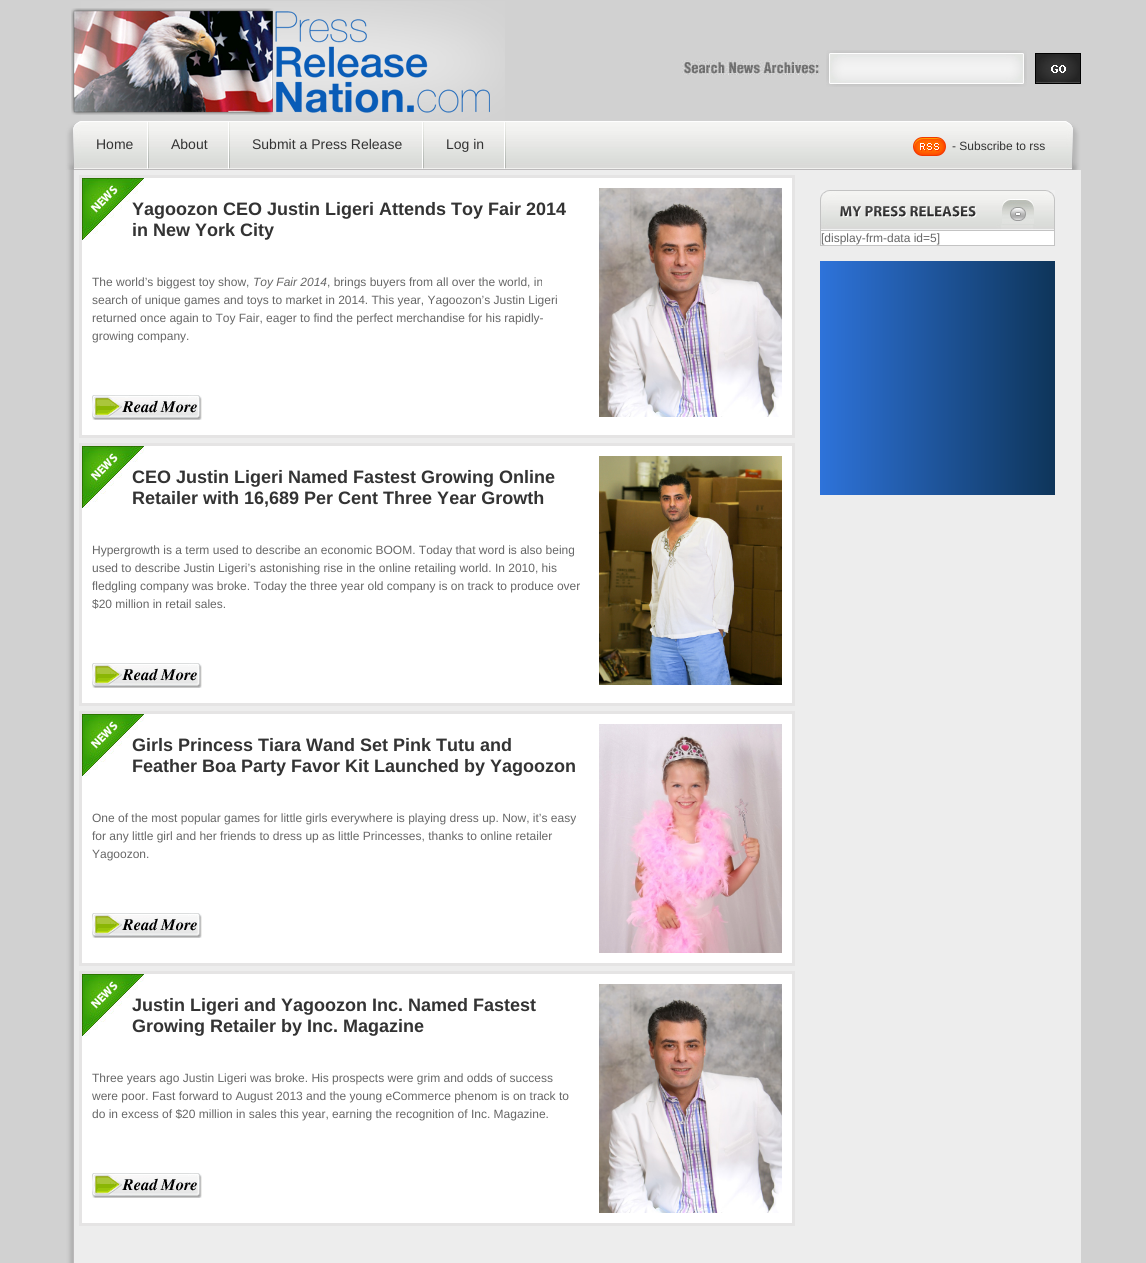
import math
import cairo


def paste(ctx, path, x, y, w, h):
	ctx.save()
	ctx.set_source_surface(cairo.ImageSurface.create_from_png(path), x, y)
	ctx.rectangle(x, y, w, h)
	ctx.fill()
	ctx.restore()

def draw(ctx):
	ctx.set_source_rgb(0.82, 0.82, 0.82)
	ctx.paint()
	paste(ctx, 'media/1.png', 81, 1, 424, 120)
	paste(ctx, 'media/2.png', 71, 8, 419, 107)
	paste(ctx, 'media/3.png', 682, 60, 138, 15)
	paste(ctx, 'media/4.png', 826, 50, 201, 37)
	paste(ctx, 'media/5.png', 1035, 53, 46, 31)
	paste(ctx, 'media/6.png', 149, 121, 917, 49)
	paste(ctx, 'media/7.png', 1066, 121, 15, 49)
	paste(ctx, 'media/8.png', 65, 121, 84, 49)
	ctx.select_font_face('Liberation Sans')
	ctx.set_font_size(14)
	ctx.set_source_rgb(0.2, 0.2, 0.2)
	ctx.move_to(96, 149)
	ctx.show_text('Home')
	paste(ctx, 'media/9.png', 228, 122, 2, 47)
	ctx.move_to(171, 149)
	ctx.show_text('About')
	paste(ctx, 'media/9.png', 422, 122, 2, 47)
	ctx.move_to(252, 149)
	ctx.show_text('Submit a Press Release')
	paste(ctx, 'media/9.png', 504, 122, 2, 47)
	ctx.move_to(446, 149)
	ctx.show_text('Log in')
	paste(ctx, 'media/10.png', 913, 137, 33, 19)
	ctx.set_font_size(12)
	ctx.move_to(952, 150)
	ctx.show_text('- Subscribe to rss')
	ctx.set_source_rgb(0.929, 0.929, 0.929)
	ctx.rectangle(74, 170, 1007, 1093)
	ctx.fill()
	paste(ctx, 'media/11.png', 65, 170, 9, 1093)
	ctx.set_source_rgb(1, 1, 1)
	ctx.rectangle(80.5, 176.5, 713, 260)
	ctx.fill_preserve()
	ctx.set_source_rgb(0.898, 0.894, 0.894)
	ctx.set_line_width(3)
	ctx.stroke()
	paste(ctx, 'media/12.png', 82, 178, 62, 62)
	ctx.select_font_face('Liberation Sans', cairo.FONT_SLANT_NORMAL, cairo.FONT_WEIGHT_BOLD)
	ctx.set_font_size(18)
	ctx.set_source_rgb(0.2, 0.2, 0.2)
	ctx.move_to(132, 215)
	ctx.show_text('Yagoozon CEO Justin Ligeri Attends Toy Fair 2014')
	ctx.move_to(132, 236)
	ctx.show_text('in New York City')
	paste(ctx, 'media/13.png', 599, 188, 183, 229)
	ctx.select_font_face('Liberation Sans')
	ctx.set_font_size(12)
	ctx.set_source_rgb(0.4, 0.4, 0.4)
	ctx.move_to(92, 286)
	ctx.show_text('The world’s biggest toy show,')
	ctx.select_font_face('Liberation Sans', cairo.FONT_SLANT_ITALIC)
	ctx.move_to(253, 286)
	ctx.show_text('Toy Fair 2014')
	ctx.select_font_face('Liberation Sans')
	for x, y, s in [
		(327, 286, ', brings buyers from all over the world, in'),
		(92, 304, 'search of unique games and toys to market in 2014. This year, Yagoozon’s Justin Ligeri'),
		(92, 322, 'returned once again to Toy Fair, eager to find the perfect merchandise for his rapidly-'),
		(92, 340, 'growing company.'),
	]:
		ctx.move_to(x, y)
		ctx.show_text(s)
	paste(ctx, 'media/14.png', 92, 395, 110, 25)
	ctx.set_source_rgb(1, 1, 1)
	ctx.rectangle(80.5, 444.5, 713, 260)
	ctx.fill_preserve()
	ctx.set_source_rgb(0.898, 0.894, 0.894)
	ctx.stroke()
	paste(ctx, 'media/12.png', 82, 446, 62, 62)
	ctx.select_font_face('Liberation Sans', cairo.FONT_SLANT_NORMAL, cairo.FONT_WEIGHT_BOLD)
	ctx.set_font_size(18)
	ctx.set_source_rgb(0.2, 0.2, 0.2)
	ctx.move_to(132, 483)
	ctx.show_text('CEO Justin Ligeri Named Fastest Growing Online')
	ctx.move_to(132, 504)
	ctx.show_text('Retailer with 16,689 Per Cent Three Year Growth')
	paste(ctx, 'media/15.png', 599, 456, 183, 229)
	ctx.select_font_face('Liberation Sans')
	ctx.set_font_size(12)
	ctx.set_source_rgb(0.4, 0.4, 0.4)
	for x, y, s in [
		(92, 554, 'Hypergrowth is a term used to describe an economic BOOM. Today that word is also being'),
		(92, 572, 'used to describe Justin Ligeri’s astonishing rise in the online retailing world. In 2010, his'),
		(92, 590, 'fledgling company was broke. Today the three year old company is on track to produce over'),
		(92, 608, '$20 million in retail sales.'),
	]:
		ctx.move_to(x, y)
		ctx.show_text(s)
	paste(ctx, 'media/14.png', 92, 663, 110, 25)
	ctx.set_source_rgb(1, 1, 1)
	ctx.rectangle(80.5, 712.5, 713, 252)
	ctx.fill_preserve()
	ctx.set_source_rgb(0.898, 0.894, 0.894)
	ctx.stroke()
	paste(ctx, 'media/12.png', 82, 714, 62, 62)
	ctx.select_font_face('Liberation Sans', cairo.FONT_SLANT_NORMAL, cairo.FONT_WEIGHT_BOLD)
	ctx.set_font_size(18)
	ctx.set_source_rgb(0.2, 0.2, 0.2)
	ctx.move_to(132, 751)
	ctx.show_text('Girls Princess Tiara Wand Set Pink Tutu and')
	ctx.move_to(132, 772)
	ctx.show_text('Feather Boa Party Favor Kit Launched by Yagoozon')
	paste(ctx, 'media/16.png', 599, 724, 183, 229)
	ctx.select_font_face('Liberation Sans')
	ctx.set_font_size(12)
	ctx.set_source_rgb(0.4, 0.4, 0.4)
	for x, y, s in [
		(92, 822, 'One of the most popular games for little girls everywhere is playing dress up. Now, it’s easy'),
		(92, 840, 'for any little girl and her friends to dress up as little Princesses, thanks to online retailer'),
		(92, 858, 'Yagoozon.'),
	]:
		ctx.move_to(x, y)
		ctx.show_text(s)
	paste(ctx, 'media/14.png', 92, 913, 110, 25)
	ctx.set_source_rgb(1, 1, 1)
	ctx.rectangle(80.5, 972.5, 713, 252)
	ctx.fill_preserve()
	ctx.set_source_rgb(0.898, 0.894, 0.894)
	ctx.stroke()
	paste(ctx, 'media/12.png', 82, 974, 62, 62)
	ctx.select_font_face('Liberation Sans', cairo.FONT_SLANT_NORMAL, cairo.FONT_WEIGHT_BOLD)
	ctx.set_font_size(18)
	ctx.set_source_rgb(0.2, 0.2, 0.2)
	ctx.move_to(132, 1011)
	ctx.show_text('Justin Ligeri and Yagoozon Inc. Named Fastest')
	ctx.move_to(132, 1032)
	ctx.show_text('Growing Retailer by Inc. Magazine')
	paste(ctx, 'media/13.png', 599, 984, 183, 229)
	ctx.select_font_face('Liberation Sans')
	ctx.set_font_size(12)
	ctx.set_source_rgb(0.4, 0.4, 0.4)
	for x, y, s in [
		(92, 1082, 'Three years ago Justin Ligeri was broke. His prospects were grim and odds of success'),
		(92, 1100, 'were poor. Fast forward to August 2013 and the young eCommerce phenom is on track to'),
		(92, 1118, 'do in excess of $20 million in sales this year, earning the recognition of Inc. Magazine.'),
	]:
		ctx.move_to(x, y)
		ctx.show_text(s)
	paste(ctx, 'media/14.png', 92, 1173, 110, 25)
	paste(ctx, 'media/17.png', 820, 190, 235, 41)
	paste(ctx, 'media/18.png', 840, 206, 22, 12)
	paste(ctx, 'media/19.png', 865, 206, 42, 12)
	paste(ctx, 'media/20.png', 910, 206, 67, 12)
	paste(ctx, 'media/21.png', 1002, 199, 32, 25)
	ctx.set_source_rgb(1, 1, 1)
	ctx.rectangle(821, 231, 233, 14)
	ctx.fill()
	ctx.set_source_rgb(0.765, 0.765, 0.765)
	ctx.rectangle(1054, 231, 1, 15)
	ctx.rectangle(820, 245, 235, 1)
	ctx.rectangle(820, 231, 1, 15)
	ctx.fill()
	ctx.set_source_rgb(0.4, 0.4, 0.4)
	ctx.move_to(821, 242)
	ctx.show_text('[display-frm-data id=5]')
	gradient = cairo.LinearGradient(820, 261, 1055, 261)
	gradient.add_color_stop_rgba(0, 0.18, 0.451, 0.855, 1)
	gradient.add_color_stop_rgba(1, 0.055, 0.208, 0.353, 1)
	ctx.set_source(gradient)
	ctx.rectangle(820, 261, 235, 234)
	ctx.fill()


surface = cairo.ImageSurface(cairo.FORMAT_RGB24, 1146, 1263)
ctx = cairo.Context(surface)
options = cairo.FontOptions()
options.set_hint_metrics(cairo.HINT_METRICS_OFF)
options.set_hint_style(cairo.HINT_STYLE_NONE)
ctx.set_font_options(options)
ctx.set_miter_limit(4)
draw(ctx)
surface.write_to_png('image.png')
